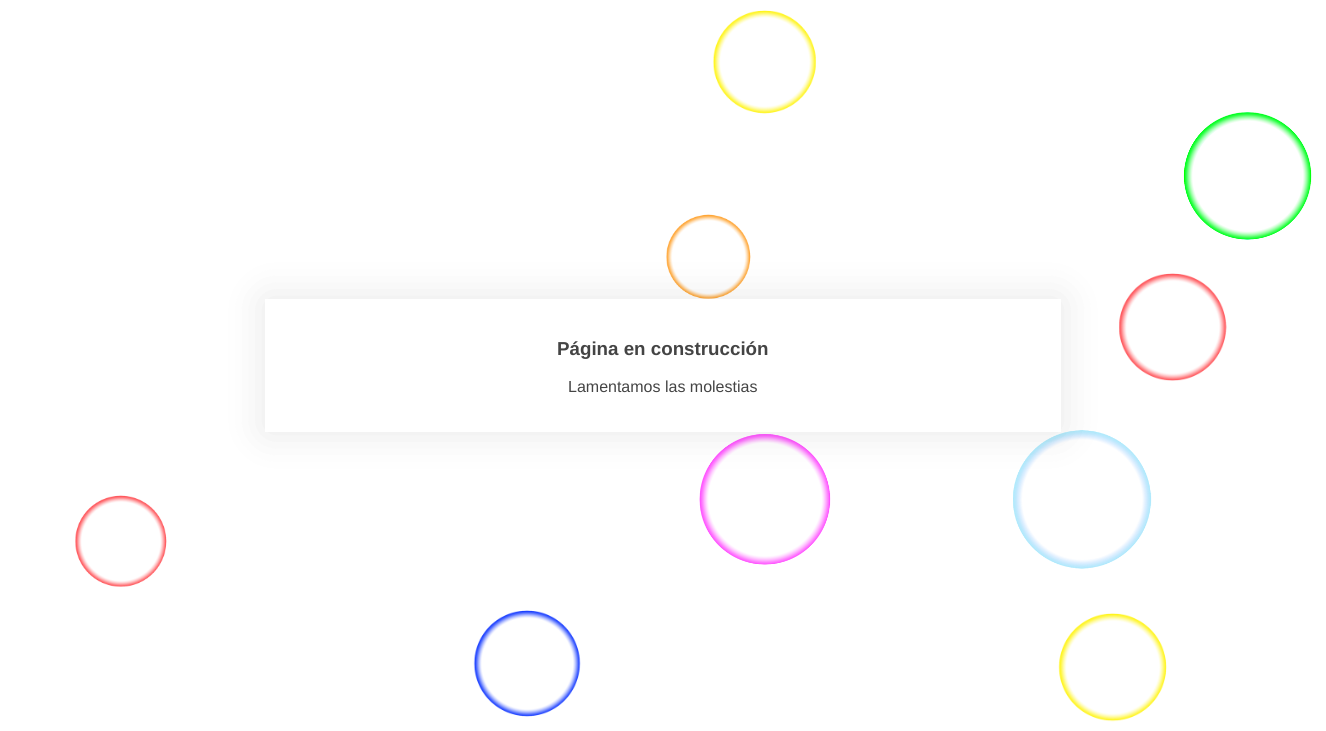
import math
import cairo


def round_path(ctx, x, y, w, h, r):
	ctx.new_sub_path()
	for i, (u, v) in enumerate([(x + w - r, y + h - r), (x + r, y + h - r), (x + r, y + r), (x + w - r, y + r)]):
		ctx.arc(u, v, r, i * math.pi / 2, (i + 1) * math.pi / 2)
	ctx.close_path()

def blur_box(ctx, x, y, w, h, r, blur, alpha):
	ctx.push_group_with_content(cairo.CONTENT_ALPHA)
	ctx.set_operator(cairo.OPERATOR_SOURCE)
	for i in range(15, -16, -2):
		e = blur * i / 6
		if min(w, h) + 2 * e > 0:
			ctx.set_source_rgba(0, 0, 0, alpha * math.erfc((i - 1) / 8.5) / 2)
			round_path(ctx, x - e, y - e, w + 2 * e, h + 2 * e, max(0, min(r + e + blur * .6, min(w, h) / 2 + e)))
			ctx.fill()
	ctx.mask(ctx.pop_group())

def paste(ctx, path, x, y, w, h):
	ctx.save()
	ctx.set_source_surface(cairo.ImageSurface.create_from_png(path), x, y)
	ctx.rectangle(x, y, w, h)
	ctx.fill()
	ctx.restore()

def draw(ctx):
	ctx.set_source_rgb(1, 1, 1)
	ctx.paint()
	paste(ctx, 'media/1.png', 75, 10, 1237, 712)
	ctx.save()
	ctx.set_fill_rule(cairo.FILL_RULE_EVEN_ODD)
	ctx.new_path()
	ctx.move_to(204, 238)
	ctx.line_to(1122, 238)
	ctx.line_to(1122, 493)
	ctx.line_to(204, 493)
	ctx.close_path()
	ctx.move_to(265, 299)
	ctx.line_to(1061, 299)
	ctx.line_to(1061, 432)
	ctx.line_to(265, 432)
	ctx.close_path()
	ctx.clip()
	ctx.set_source_rgb(0, 0, 0)
	blur_box(ctx, 265, 299, 796, 133, 0, 20, 0.1)
	ctx.restore()
	ctx.select_font_face('Liberation Sans', cairo.FONT_SLANT_NORMAL, cairo.FONT_WEIGHT_BOLD)
	ctx.set_font_size(18.75)
	ctx.set_source_rgb(0.267, 0.267, 0.267)
	ctx.move_to(557, 355)
	ctx.show_text('Página en construcción')
	ctx.select_font_face('Liberation Sans')
	ctx.set_font_size(16)
	ctx.move_to(568, 392)
	ctx.show_text('Lamentamos las molestias')


surface = cairo.ImageSurface(cairo.FORMAT_RGB24, 1326, 731)
ctx = cairo.Context(surface)
options = cairo.FontOptions()
options.set_hint_metrics(cairo.HINT_METRICS_OFF)
options.set_hint_style(cairo.HINT_STYLE_NONE)
ctx.set_font_options(options)
ctx.set_miter_limit(4)
draw(ctx)
surface.write_to_png('image.png')
